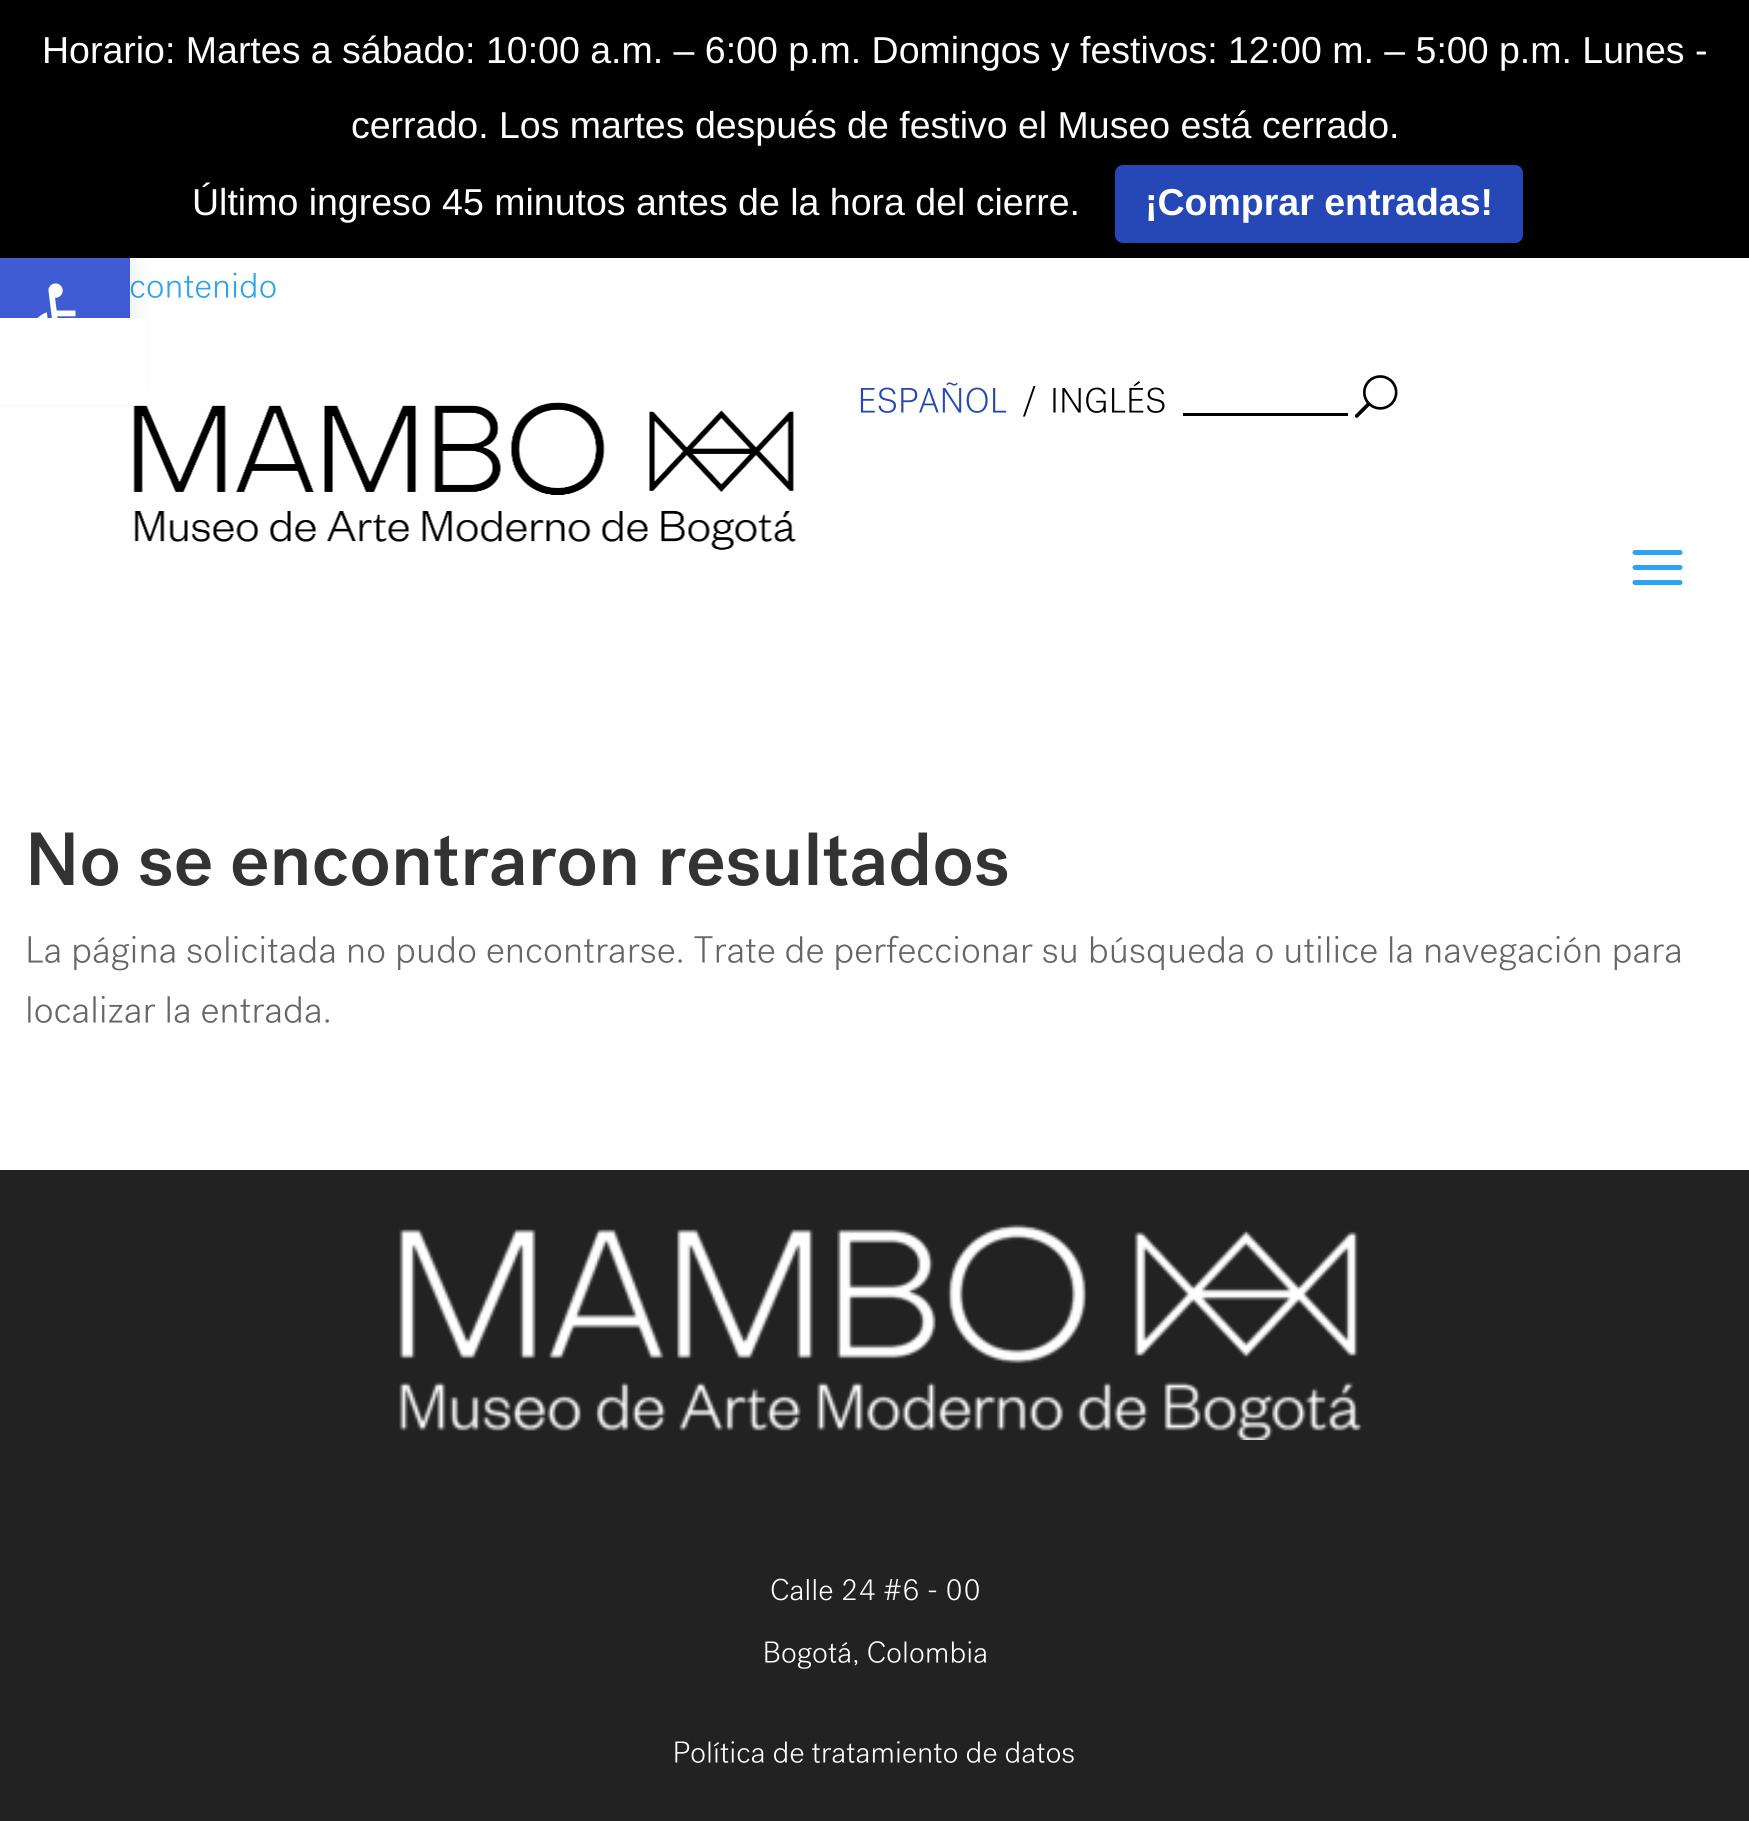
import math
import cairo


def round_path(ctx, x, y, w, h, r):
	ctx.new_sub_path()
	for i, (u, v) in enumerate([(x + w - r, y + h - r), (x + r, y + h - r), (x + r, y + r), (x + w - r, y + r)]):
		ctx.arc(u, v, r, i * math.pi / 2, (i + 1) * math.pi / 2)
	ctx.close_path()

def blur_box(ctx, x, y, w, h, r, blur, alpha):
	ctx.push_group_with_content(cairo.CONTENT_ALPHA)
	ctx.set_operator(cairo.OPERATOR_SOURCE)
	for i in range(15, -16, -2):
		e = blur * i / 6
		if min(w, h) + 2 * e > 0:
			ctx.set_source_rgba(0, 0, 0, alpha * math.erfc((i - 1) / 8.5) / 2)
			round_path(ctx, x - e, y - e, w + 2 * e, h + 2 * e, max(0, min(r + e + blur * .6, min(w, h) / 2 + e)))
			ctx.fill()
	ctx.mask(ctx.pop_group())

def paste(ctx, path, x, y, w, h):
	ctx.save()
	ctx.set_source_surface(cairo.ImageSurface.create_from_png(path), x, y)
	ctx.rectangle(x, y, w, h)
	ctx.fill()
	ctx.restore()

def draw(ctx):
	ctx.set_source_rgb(1, 1, 1)
	ctx.paint()
	paste(ctx, 'media/2.png', 130, 272, 146, 26)
	ctx.set_source_rgb(0, 0, 0)
	blur_box(ctx, 0, 258, 130, 130, 0, 12.5, 0.1)
	ctx.set_source_rgb(0, 0, 0)
	ctx.rectangle(0, 0, 1749, 258)
	ctx.fill()
	ctx.select_font_face('Liberation Sans')
	ctx.set_font_size(37.5)
	ctx.set_source_rgb(1, 1, 1)
	for x, y, s in [
		(42, 63, 'Horario: Martes a sábado: 10:00 a.m. – 6:00 p.m. Domingos y festivos: 12:00 m. – 5:00 p.m. Lunes -'),
		(351, 138, 'cerrado. Los martes después de festivo el Museo está cerrado.'),
		(192, 215, 'Último ingreso 45 minutos antes de la hora del cierre.'),
	]:
		ctx.move_to(x, y)
		ctx.show_text(s)
	ctx.set_source_rgb(0.149, 0.282, 0.714)
	round_path(ctx, 1115, 165, 408, 78, 8)
	ctx.fill()
	ctx.select_font_face('Liberation Sans', cairo.FONT_SLANT_NORMAL, cairo.FONT_WEIGHT_BOLD)
	ctx.set_source_rgb(1, 1, 1)
	ctx.move_to(1145, 215)
	ctx.show_text('¡Comprar entradas!')
	ctx.set_source_rgb(0.251, 0.361, 0.831)
	ctx.rectangle(0, 258, 130, 60)
	ctx.fill()
	paste(ctx, 'media/1.png', 37, 283, 39, 35)
	ctx.set_source_rgb(1, 1, 1)
	ctx.rectangle(0, 318, 146, 86)
	ctx.fill()
	paste(ctx, 'media/3.png', 133, 402, 663, 148)
	paste(ctx, 'media/4.png', 860, 382, 147, 31)
	ctx.set_source_rgb(0, 0, 0)
	ctx.new_path()
	ctx.move_to(1023, 416.5)
	ctx.line_to(1025, 416.5)
	ctx.line_to(1035.5, 386)
	ctx.line_to(1033.5, 386)
	ctx.close_path()
	ctx.fill()
	paste(ctx, 'media/5.png', 1053, 381, 112, 32)
	ctx.rectangle(1183, 413, 165, 3)
	ctx.fill()
	paste(ctx, 'media/6.png', 1354, 375, 44, 43)
	paste(ctx, 'media/7.png', 1632, 550, 51, 35)
	paste(ctx, 'media/8.png', 31, 832, 977, 54)
	paste(ctx, 'media/9.png', 28, 935, 1653, 36)
	paste(ctx, 'media/10.png', 28, 995, 301, 28)
	ctx.set_source_rgb(0.133, 0.133, 0.133)
	ctx.rectangle(0, 1170, 1749, 651)
	ctx.fill()
	paste(ctx, 'media/11.png', 399, 1224, 964, 216)
	paste(ctx, 'media/12.png', 771, 1578, 208, 23)
	paste(ctx, 'media/13.png', 765, 1641, 221, 28)
	paste(ctx, 'media/14.png', 675, 1741, 399, 22)


surface = cairo.ImageSurface(cairo.FORMAT_RGB24, 1749, 1821)
ctx = cairo.Context(surface)
options = cairo.FontOptions()
options.set_hint_metrics(cairo.HINT_METRICS_OFF)
options.set_hint_style(cairo.HINT_STYLE_NONE)
ctx.set_font_options(options)
ctx.set_miter_limit(4)
draw(ctx)
surface.write_to_png('image.png')
